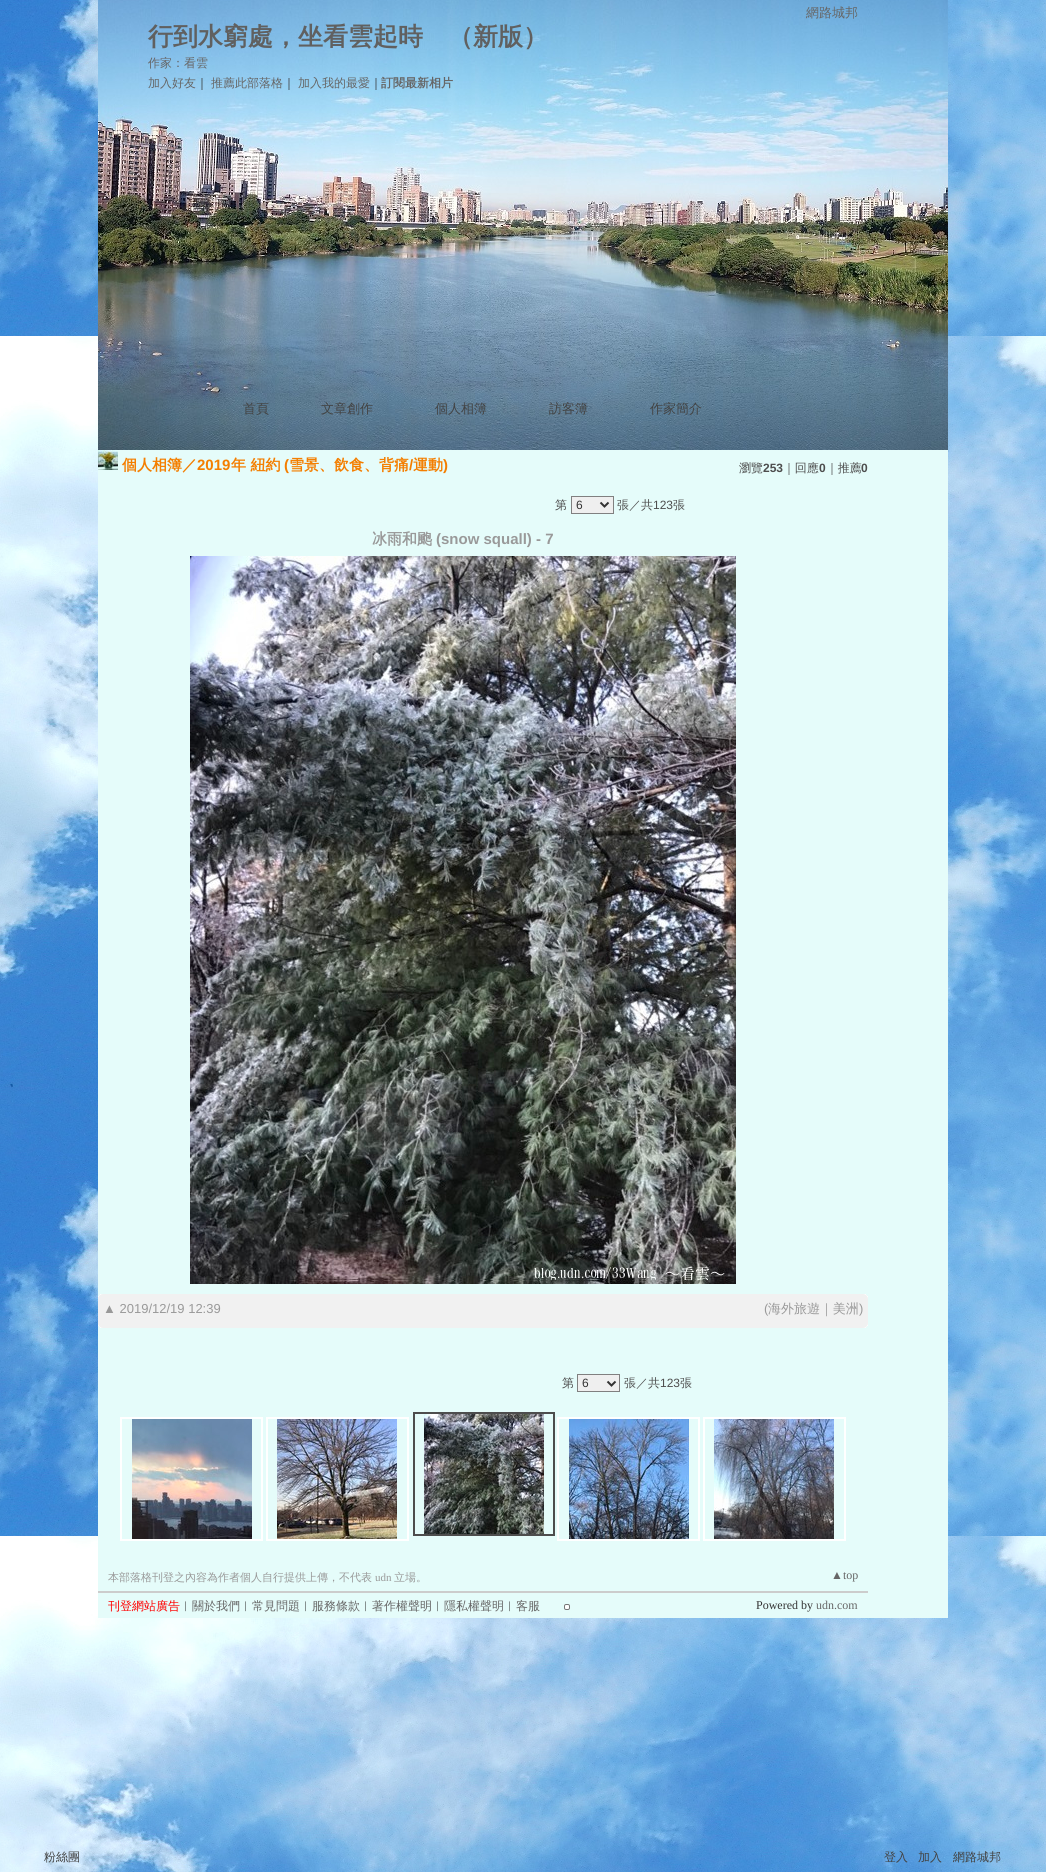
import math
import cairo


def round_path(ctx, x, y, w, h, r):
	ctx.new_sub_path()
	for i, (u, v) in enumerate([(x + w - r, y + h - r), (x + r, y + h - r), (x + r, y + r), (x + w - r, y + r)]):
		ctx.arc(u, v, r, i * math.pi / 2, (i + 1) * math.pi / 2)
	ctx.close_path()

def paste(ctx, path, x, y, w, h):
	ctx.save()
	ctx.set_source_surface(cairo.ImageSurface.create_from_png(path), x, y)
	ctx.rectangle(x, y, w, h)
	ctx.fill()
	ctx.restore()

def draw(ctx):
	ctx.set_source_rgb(1, 1, 1)
	ctx.paint()
	paste(ctx, 'media/1.png', 0, 0, 1046, 1872)
	ctx.set_source_rgb(0.898, 0.988, 0.98)
	ctx.rectangle(98, 450, 850, 1168)
	ctx.fill()
	paste(ctx, 'media/2.png', 98, 0, 850, 450)
	ctx.select_font_face('WenQuanYi Zen Hei Medium')
	ctx.set_font_size(13)
	ctx.set_source_rgb(0.4, 0.4, 0.4)
	ctx.move_to(806, 17)
	ctx.show_text('網路城邦')
	ctx.select_font_face('WenQuanYi Zen Hei', cairo.FONT_SLANT_NORMAL, cairo.FONT_WEIGHT_BOLD)
	ctx.set_font_size(25)
	ctx.set_source_rgb(0.376, 0.376, 0.376)
	ctx.move_to(148, 45)
	ctx.show_text('行到水窮處，坐看雲起時')
	ctx.move_to(448, 45)
	ctx.show_text('（新版）')
	ctx.select_font_face('WenQuanYi Zen Hei Medium')
	ctx.set_font_size(12)
	ctx.set_source_rgb(0.4, 0.4, 0.4)
	ctx.move_to(148, 67)
	ctx.show_text('作家：看雲')
	ctx.move_to(148, 87)
	ctx.show_text('加入好友')
	ctx.set_source_rgb(0.2, 0.2, 0.2)
	ctx.move_to(196, 87)
	ctx.show_text('｜')
	ctx.set_source_rgb(0.4, 0.4, 0.4)
	ctx.move_to(211, 87)
	ctx.show_text('推薦此部落格')
	ctx.set_source_rgb(0.2, 0.2, 0.2)
	ctx.move_to(283, 87)
	ctx.show_text('｜')
	ctx.set_source_rgb(0.4, 0.4, 0.4)
	ctx.move_to(298, 87)
	ctx.show_text('加入我的最愛')
	ctx.set_source_rgb(0.2, 0.2, 0.2)
	ctx.move_to(370, 87)
	ctx.show_text('｜')
	ctx.select_font_face('WenQuanYi Zen Hei', cairo.FONT_SLANT_NORMAL, cairo.FONT_WEIGHT_BOLD)
	ctx.set_source_rgb(0.4, 0.4, 0.4)
	ctx.move_to(381, 87)
	ctx.show_text('訂閱最新相片')
	ctx.select_font_face('WenQuanYi Zen Hei Medium')
	ctx.set_font_size(13)
	ctx.set_source_rgb(0.259, 0.259, 0.259)
	for x, y, s in [
		(243, 413, '首頁'),
		(321, 413, '文章創作'),
		(435, 413, '個人相簿'),
		(549, 413, '訪客簿'),
		(650, 413, '作家簡介'),
	]:
		ctx.move_to(x, y)
		ctx.show_text(s)
	paste(ctx, 'media/3.png', 98, 450, 20, 20)
	ctx.select_font_face('WenQuanYi Zen Hei', cairo.FONT_SLANT_NORMAL, cairo.FONT_WEIGHT_BOLD)
	ctx.set_font_size(15)
	ctx.set_source_rgb(0.957, 0.494, 0)
	ctx.move_to(122, 470)
	ctx.show_text('個人相簿／')
	ctx.select_font_face('Liberation Sans', cairo.FONT_SLANT_NORMAL, cairo.FONT_WEIGHT_BOLD)
	ctx.move_to(197, 470)
	ctx.show_text('2019')
	ctx.select_font_face('WenQuanYi Zen Hei', cairo.FONT_SLANT_NORMAL, cairo.FONT_WEIGHT_BOLD)
	ctx.move_to(231, 470)
	ctx.show_text('年 紐約')
	ctx.select_font_face('Liberation Sans', cairo.FONT_SLANT_NORMAL, cairo.FONT_WEIGHT_BOLD)
	ctx.move_to(284, 470)
	ctx.show_text('(')
	ctx.select_font_face('WenQuanYi Zen Hei', cairo.FONT_SLANT_NORMAL, cairo.FONT_WEIGHT_BOLD)
	ctx.move_to(289, 470)
	ctx.show_text('雪景、飲食、背痛')
	ctx.select_font_face('Liberation Sans', cairo.FONT_SLANT_NORMAL, cairo.FONT_WEIGHT_BOLD)
	ctx.move_to(409, 470)
	ctx.show_text('/')
	ctx.select_font_face('WenQuanYi Zen Hei', cairo.FONT_SLANT_NORMAL, cairo.FONT_WEIGHT_BOLD)
	ctx.move_to(413, 470)
	ctx.show_text('運動')
	ctx.select_font_face('Liberation Sans', cairo.FONT_SLANT_NORMAL, cairo.FONT_WEIGHT_BOLD)
	ctx.move_to(443, 470)
	ctx.show_text(')')
	ctx.select_font_face('WenQuanYi Zen Hei Medium')
	ctx.set_font_size(12)
	ctx.set_source_rgb(0.302, 0.302, 0.302)
	ctx.move_to(739, 472)
	ctx.show_text('瀏覽')
	ctx.select_font_face('Liberation Sans', cairo.FONT_SLANT_NORMAL, cairo.FONT_WEIGHT_BOLD)
	ctx.move_to(763, 472)
	ctx.show_text('253')
	ctx.select_font_face('WenQuanYi Zen Hei Medium')
	ctx.move_to(783, 472)
	ctx.show_text('｜回應')
	ctx.select_font_face('Liberation Sans', cairo.FONT_SLANT_NORMAL, cairo.FONT_WEIGHT_BOLD)
	ctx.move_to(819, 472)
	ctx.show_text('0')
	ctx.select_font_face('WenQuanYi Zen Hei Medium')
	ctx.move_to(826, 472)
	ctx.show_text('｜推薦')
	ctx.select_font_face('Liberation Sans', cairo.FONT_SLANT_NORMAL, cairo.FONT_WEIGHT_BOLD)
	ctx.move_to(861, 472)
	ctx.show_text('0')
	ctx.select_font_face('WenQuanYi Zen Hei Medium')
	ctx.move_to(555, 509)
	ctx.show_text('第')
	ctx.set_source_rgb(0.937, 0.937, 0.937)
	ctx.rectangle(571.5, 496.5, 42, 17)
	ctx.fill_preserve()
	ctx.set_source_rgb(0.502, 0.502, 0.502)
	ctx.set_line_width(1)
	ctx.stroke()
	ctx.new_path()
	ctx.move_to(600.5, 502.5)
	ctx.line_to(604.5, 506.5)
	ctx.line_to(608.5, 502.5)
	ctx.set_source_rgb(0.2, 0.2, 0.2)
	ctx.set_line_width(2)
	ctx.stroke()
	ctx.select_font_face('Liberation Sans')
	ctx.move_to(576, 509)
	ctx.show_text('6')
	ctx.select_font_face('WenQuanYi Zen Hei Medium')
	ctx.set_source_rgb(0.302, 0.302, 0.302)
	ctx.move_to(617, 509)
	ctx.show_text('張／共')
	ctx.select_font_face('Liberation Sans')
	ctx.move_to(653, 509)
	ctx.show_text('123')
	ctx.select_font_face('WenQuanYi Zen Hei Medium')
	ctx.move_to(673, 509)
	ctx.show_text('張')
	ctx.select_font_face('WenQuanYi Zen Hei', cairo.FONT_SLANT_NORMAL, cairo.FONT_WEIGHT_BOLD)
	ctx.set_font_size(15)
	ctx.set_source_rgb(0.6, 0.6, 0.6)
	ctx.move_to(372, 544)
	ctx.show_text('冰雨和颮')
	ctx.select_font_face('Liberation Sans', cairo.FONT_SLANT_NORMAL, cairo.FONT_WEIGHT_BOLD)
	ctx.move_to(436, 544)
	ctx.show_text('(snow squall) - 7')
	paste(ctx, 'media/4.png', 190, 556, 546, 728)
	paste(ctx, 'media/5.png', 98, 1294, 5, 5)
	ctx.set_source_rgb(0.945, 0.945, 0.945)
	ctx.rectangle(103, 1294, 760, 5)
	ctx.fill()
	paste(ctx, 'media/6.png', 863, 1294, 5, 5)
	ctx.rectangle(98, 1299, 770, 24)
	ctx.fill()
	ctx.select_font_face('Liberation Sans')
	ctx.set_font_size(13)
	ctx.set_source_rgb(0.6, 0.6, 0.6)
	ctx.move_to(103, 1313)
	ctx.show_text('▲ 2019/12/19 12:39')
	ctx.move_to(764, 1313)
	ctx.show_text('(')
	ctx.select_font_face('WenQuanYi Zen Hei Medium')
	ctx.move_to(768, 1313)
	ctx.show_text('海外旅遊｜美洲')
	ctx.select_font_face('Liberation Sans')
	ctx.move_to(859, 1313)
	ctx.show_text(')')
	paste(ctx, 'media/7.png', 98, 1323, 5, 5)
	ctx.set_source_rgb(0.945, 0.945, 0.945)
	ctx.rectangle(103, 1323, 760, 5)
	ctx.fill()
	paste(ctx, 'media/8.png', 863, 1323, 5, 5)
	ctx.select_font_face('WenQuanYi Zen Hei Medium')
	ctx.set_font_size(12)
	ctx.set_source_rgb(0.302, 0.302, 0.302)
	ctx.move_to(562, 1387)
	ctx.show_text('第')
	ctx.set_source_rgb(0.937, 0.937, 0.937)
	ctx.rectangle(577.5, 1374.5, 42, 17)
	ctx.fill_preserve()
	ctx.set_source_rgb(0.502, 0.502, 0.502)
	ctx.set_line_width(1)
	ctx.stroke()
	ctx.new_path()
	ctx.move_to(607.5, 1381.5)
	ctx.line_to(611.5, 1385.5)
	ctx.line_to(615.5, 1381.5)
	ctx.set_source_rgb(0.2, 0.2, 0.2)
	ctx.set_line_width(2)
	ctx.stroke()
	ctx.select_font_face('Liberation Sans')
	ctx.move_to(582, 1387)
	ctx.show_text('6')
	ctx.select_font_face('WenQuanYi Zen Hei Medium')
	ctx.set_source_rgb(0.302, 0.302, 0.302)
	ctx.move_to(624, 1387)
	ctx.show_text('張／共')
	ctx.select_font_face('Liberation Sans')
	ctx.move_to(660, 1387)
	ctx.show_text('123')
	ctx.select_font_face('WenQuanYi Zen Hei Medium')
	ctx.move_to(680, 1387)
	ctx.show_text('張')
	ctx.rectangle(121, 1418, 141, 122)
	ctx.set_source_rgb(1, 1, 1)
	ctx.stroke()
	paste(ctx, 'media/9.png', 132, 1419, 120, 120)
	ctx.rectangle(267, 1418, 141, 122)
	ctx.stroke()
	paste(ctx, 'media/10.png', 277, 1419, 120, 120)
	ctx.rectangle(414, 1413, 140, 122)
	ctx.set_source_rgb(0.302, 0.302, 0.302)
	ctx.stroke()
	paste(ctx, 'media/11.png', 424, 1414, 120, 120)
	ctx.rectangle(558, 1418, 141, 122)
	ctx.set_source_rgb(1, 1, 1)
	ctx.stroke()
	paste(ctx, 'media/12.png', 569, 1419, 120, 120)
	ctx.rectangle(704, 1418, 141, 122)
	ctx.stroke()
	paste(ctx, 'media/13.png', 714, 1419, 120, 120)
	ctx.set_source_rgb(0.8, 0.8, 0.8)
	ctx.rectangle(98, 1591, 770, 2)
	ctx.fill()
	ctx.set_font_size(11)
	ctx.set_source_rgb(0.6, 0.6, 0.6)
	ctx.move_to(108, 1581)
	ctx.show_text('本部落格刊登之內容為作者個人自行提供上傳，不代表')
	ctx.select_font_face('Liberation Serif')
	ctx.move_to(375, 1581)
	ctx.show_text('udn')
	ctx.select_font_face('WenQuanYi Zen Hei Medium')
	ctx.move_to(394, 1581)
	ctx.show_text('立場。')
	ctx.select_font_face('Liberation Serif')
	ctx.set_font_size(12)
	ctx.set_source_rgb(0.4, 0.4, 0.4)
	ctx.move_to(831, 1579)
	ctx.show_text('▲top')
	ctx.select_font_face('WenQuanYi Zen Hei Medium')
	ctx.set_source_rgb(1, 0, 0)
	ctx.move_to(108, 1610)
	ctx.show_text('刊登網站廣告')
	ctx.set_source_rgb(0.2, 0.2, 0.2)
	ctx.move_to(180, 1610)
	ctx.show_text('︱')
	ctx.set_source_rgb(0.4, 0.4, 0.4)
	ctx.move_to(192, 1610)
	ctx.show_text('關於我們')
	ctx.set_source_rgb(0.2, 0.2, 0.2)
	ctx.move_to(240, 1610)
	ctx.show_text('︱')
	ctx.set_source_rgb(0.4, 0.4, 0.4)
	ctx.move_to(252, 1610)
	ctx.show_text('常見問題')
	ctx.set_source_rgb(0.2, 0.2, 0.2)
	ctx.move_to(300, 1610)
	ctx.show_text('︱')
	ctx.set_source_rgb(0.4, 0.4, 0.4)
	ctx.move_to(312, 1610)
	ctx.show_text('服務條款')
	ctx.set_source_rgb(0.2, 0.2, 0.2)
	ctx.move_to(360, 1610)
	ctx.show_text('︱')
	ctx.set_source_rgb(0.4, 0.4, 0.4)
	ctx.move_to(372, 1610)
	ctx.show_text('著作權聲明')
	ctx.set_source_rgb(0.2, 0.2, 0.2)
	ctx.move_to(432, 1610)
	ctx.show_text('︱')
	ctx.set_source_rgb(0.4, 0.4, 0.4)
	ctx.move_to(444, 1610)
	ctx.show_text('隱私權聲明')
	ctx.set_source_rgb(0.2, 0.2, 0.2)
	ctx.move_to(504, 1610)
	ctx.show_text('︱')
	ctx.set_source_rgb(0.4, 0.4, 0.4)
	ctx.move_to(516, 1610)
	ctx.show_text('客服')
	ctx.set_source_rgb(1, 1, 1)
	round_path(ctx, 564.5, 1604.5, 5, 5, 1.5)
	ctx.fill_preserve()
	ctx.set_source_rgb(0.463, 0.463, 0.463)
	ctx.set_line_width(1)
	ctx.stroke()
	ctx.select_font_face('Liberation Serif')
	ctx.set_source_rgb(0.2, 0.2, 0.2)
	ctx.move_to(756, 1609)
	ctx.show_text('Powered by')
	ctx.set_source_rgb(0.4, 0.4, 0.4)
	ctx.move_to(816, 1609)
	ctx.show_text('udn.com')
	ctx.select_font_face('WenQuanYi Zen Hei Medium')
	ctx.set_source_rgb(0.259, 0.259, 0.259)
	for x, y, s in [
		(44, 1861, '粉絲團'),
		(884, 1861, '登入'),
		(918, 1861, '加入'),
		(953, 1861, '網路城邦'),
	]:
		ctx.move_to(x, y)
		ctx.show_text(s)


surface = cairo.ImageSurface(cairo.FORMAT_RGB24, 1046, 1872)
ctx = cairo.Context(surface)
options = cairo.FontOptions()
options.set_hint_metrics(cairo.HINT_METRICS_OFF)
options.set_hint_style(cairo.HINT_STYLE_NONE)
ctx.set_font_options(options)
ctx.set_miter_limit(4)
draw(ctx)
surface.write_to_png('image.png')
